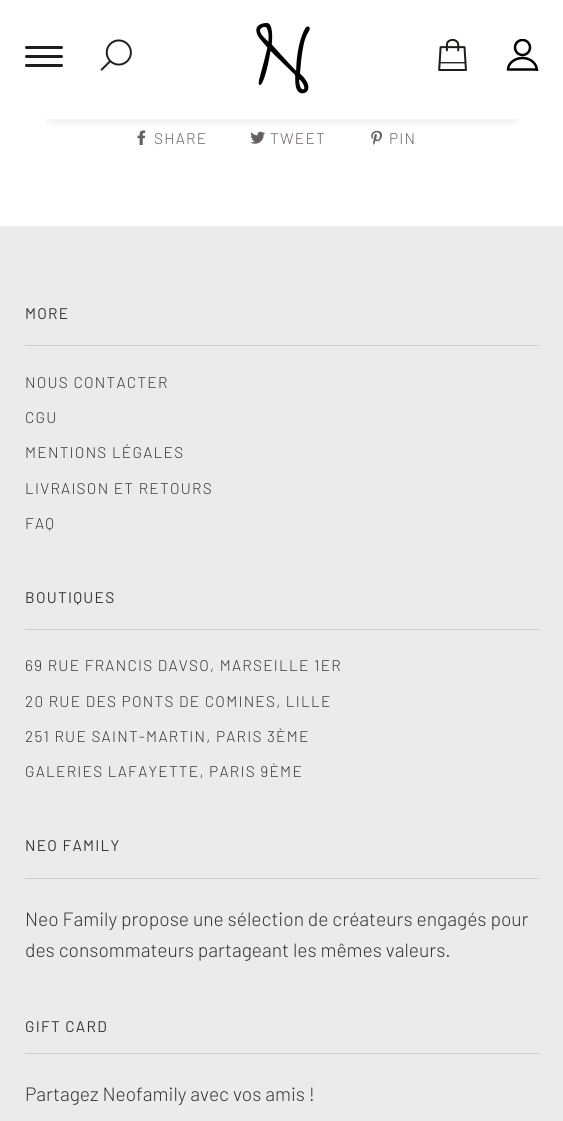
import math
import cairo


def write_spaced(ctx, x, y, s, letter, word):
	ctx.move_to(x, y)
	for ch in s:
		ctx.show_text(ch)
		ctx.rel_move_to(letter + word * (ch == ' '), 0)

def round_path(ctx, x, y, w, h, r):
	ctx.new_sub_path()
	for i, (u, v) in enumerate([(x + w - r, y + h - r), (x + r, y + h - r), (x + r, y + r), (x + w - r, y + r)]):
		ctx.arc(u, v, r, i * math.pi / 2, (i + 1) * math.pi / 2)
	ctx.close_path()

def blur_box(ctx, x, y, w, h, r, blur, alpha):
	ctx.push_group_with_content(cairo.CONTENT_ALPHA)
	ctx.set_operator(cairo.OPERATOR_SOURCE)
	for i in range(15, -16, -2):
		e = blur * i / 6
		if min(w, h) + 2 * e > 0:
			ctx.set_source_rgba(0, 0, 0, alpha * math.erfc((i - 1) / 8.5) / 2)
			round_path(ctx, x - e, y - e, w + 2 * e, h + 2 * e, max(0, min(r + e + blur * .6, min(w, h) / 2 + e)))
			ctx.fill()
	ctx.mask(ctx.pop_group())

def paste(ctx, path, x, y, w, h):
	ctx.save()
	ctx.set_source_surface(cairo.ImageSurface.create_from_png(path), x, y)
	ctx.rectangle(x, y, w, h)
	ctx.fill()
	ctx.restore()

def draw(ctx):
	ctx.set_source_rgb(1, 1, 1)
	ctx.paint()
	paste(ctx, 'media/4.png', 137, 130, 9, 15)
	paste(ctx, 'media/5.png', 250, 131, 15, 13)
	paste(ctx, 'media/6.png', 371, 130, 11, 15)
	ctx.save()
	ctx.rectangle(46, 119, 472, 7)
	ctx.clip()
	ctx.set_source_rgb(0, 0, 0)
	blur_box(ctx, 50, 45, 464, 69, 0, 9.5, 0.2)
	ctx.restore()
	ctx.set_source_rgb(0.114, 0.114, 0.106)
	round_path(ctx, 25, 46, 38, 3, 1.5)
	ctx.fill()
	round_path(ctx, 25, 55, 38, 3, 1.5)
	ctx.fill()
	round_path(ctx, 25, 64, 38, 3, 1.5)
	ctx.fill()
	paste(ctx, 'media/1.png', 100, 39, 32, 32)
	paste(ctx, 'media/2.png', 256, 22, 54, 72)
	paste(ctx, 'media/3.png', 438, 38, 29, 33)
	ctx.save()
	ctx.rectangle(506, 39, 33, 32)
	ctx.clip()
	ctx.arc(522.5, 47.5, 7.5, 0, 2 * math.pi)
	ctx.set_source_rgb(0, 0, 0)
	ctx.set_line_width(2.5)
	ctx.stroke()
	ctx.new_path()
	ctx.move_to(537, 71)
	ctx.curve_to(537, 63.5, 530.5, 58, 522.5, 58)
	ctx.curve_to(514.5, 58, 508, 63.5, 508, 69.5)
	ctx.line_to(537, 69.5)
	ctx.close_path()
	ctx.set_line_cap(cairo.LINE_CAP_ROUND)
	ctx.set_line_join(cairo.LINE_JOIN_ROUND)
	ctx.stroke()
	ctx.restore()
	ctx.select_font_face('Barlow Light')
	ctx.set_font_size(15.4)
	ctx.set_source_rgb(0.4, 0.373, 0.373)
	for x, y, s in [
		(154, 144, 'SHARE'),
		(270, 144, 'TWEET'),
		(389, 144, 'PIN'),
	]:
		write_spaced(ctx, x, y, s, 1.25, 0)
	ctx.set_source_rgb(0.918, 0.918, 0.918)
	ctx.rectangle(0, 226, 563, 895)
	ctx.fill()
	ctx.select_font_face('Barlow')
	ctx.set_source_rgb(0.2, 0.2, 0.2)
	write_spaced(ctx, 25, 319, 'MORE', 1.25, 0)
	ctx.set_source_rgb(0.8, 0.8, 0.8)
	ctx.rectangle(25, 345, 514, 1)
	ctx.fill()
	ctx.select_font_face('Barlow Light')
	ctx.set_source_rgb(0.2, 0.2, 0.2)
	for x, y, s in [
		(25, 388, 'NOUS CONTACTER'),
		(25, 423, 'CGU'),
		(25, 458, 'MENTIONS LÉGALES'),
		(25, 494, 'LIVRAISON ET RETOURS'),
		(25, 529, 'FAQ'),
	]:
		write_spaced(ctx, x, y, s, 1.25, 0)
	ctx.select_font_face('Barlow')
	write_spaced(ctx, 25, 603, 'BOUTIQUES', 1.25, 0)
	ctx.set_source_rgb(0.8, 0.8, 0.8)
	ctx.rectangle(25, 629, 514, 1)
	ctx.fill()
	ctx.select_font_face('Barlow Light')
	ctx.set_source_rgb(0.2, 0.2, 0.2)
	for x, y, s in [
		(25, 671, '69 RUE FRANCIS DAVSO, MARSEILLE 1ER'),
		(25, 707, '20 RUE DES PONTS DE COMINES, LILLE'),
		(25, 742, '251 RUE SAINT-MARTIN, PARIS 3ÈME'),
		(25, 777, 'GALERIES LAFAYETTE, PARIS 9ÈME'),
	]:
		write_spaced(ctx, x, y, s, 1.25, 0)
	ctx.select_font_face('Barlow')
	write_spaced(ctx, 25, 851, 'NEO FAMILY', 1.25, 0)
	ctx.set_source_rgb(0.8, 0.8, 0.8)
	ctx.rectangle(25, 878, 514, 1)
	ctx.fill()
	ctx.select_font_face('Barlow Light')
	ctx.set_font_size(19.25)
	ctx.set_source_rgb(0.2, 0.2, 0.2)
	ctx.move_to(25, 926)
	ctx.show_text('Neo Family propose une sélection de créateurs engagés pour')
	ctx.move_to(25, 957)
	ctx.show_text('des consommateurs partageant les mêmes valeurs.')
	ctx.select_font_face('Barlow')
	ctx.set_font_size(15.4)
	write_spaced(ctx, 25, 1032, 'GIFT CARD', 1.25, 0)
	ctx.set_source_rgb(0.8, 0.8, 0.8)
	ctx.rectangle(25, 1053, 514, 1)
	ctx.fill()
	ctx.select_font_face('Barlow Light')
	ctx.set_font_size(19.25)
	ctx.set_source_rgb(0.2, 0.2, 0.2)
	ctx.move_to(25, 1101)
	ctx.show_text('Partagez Neofamily avec vos amis !')


surface = cairo.ImageSurface(cairo.FORMAT_RGB24, 563, 1121)
ctx = cairo.Context(surface)
options = cairo.FontOptions()
options.set_hint_metrics(cairo.HINT_METRICS_OFF)
options.set_hint_style(cairo.HINT_STYLE_NONE)
ctx.set_font_options(options)
ctx.set_miter_limit(4)
draw(ctx)
surface.write_to_png('image.png')
